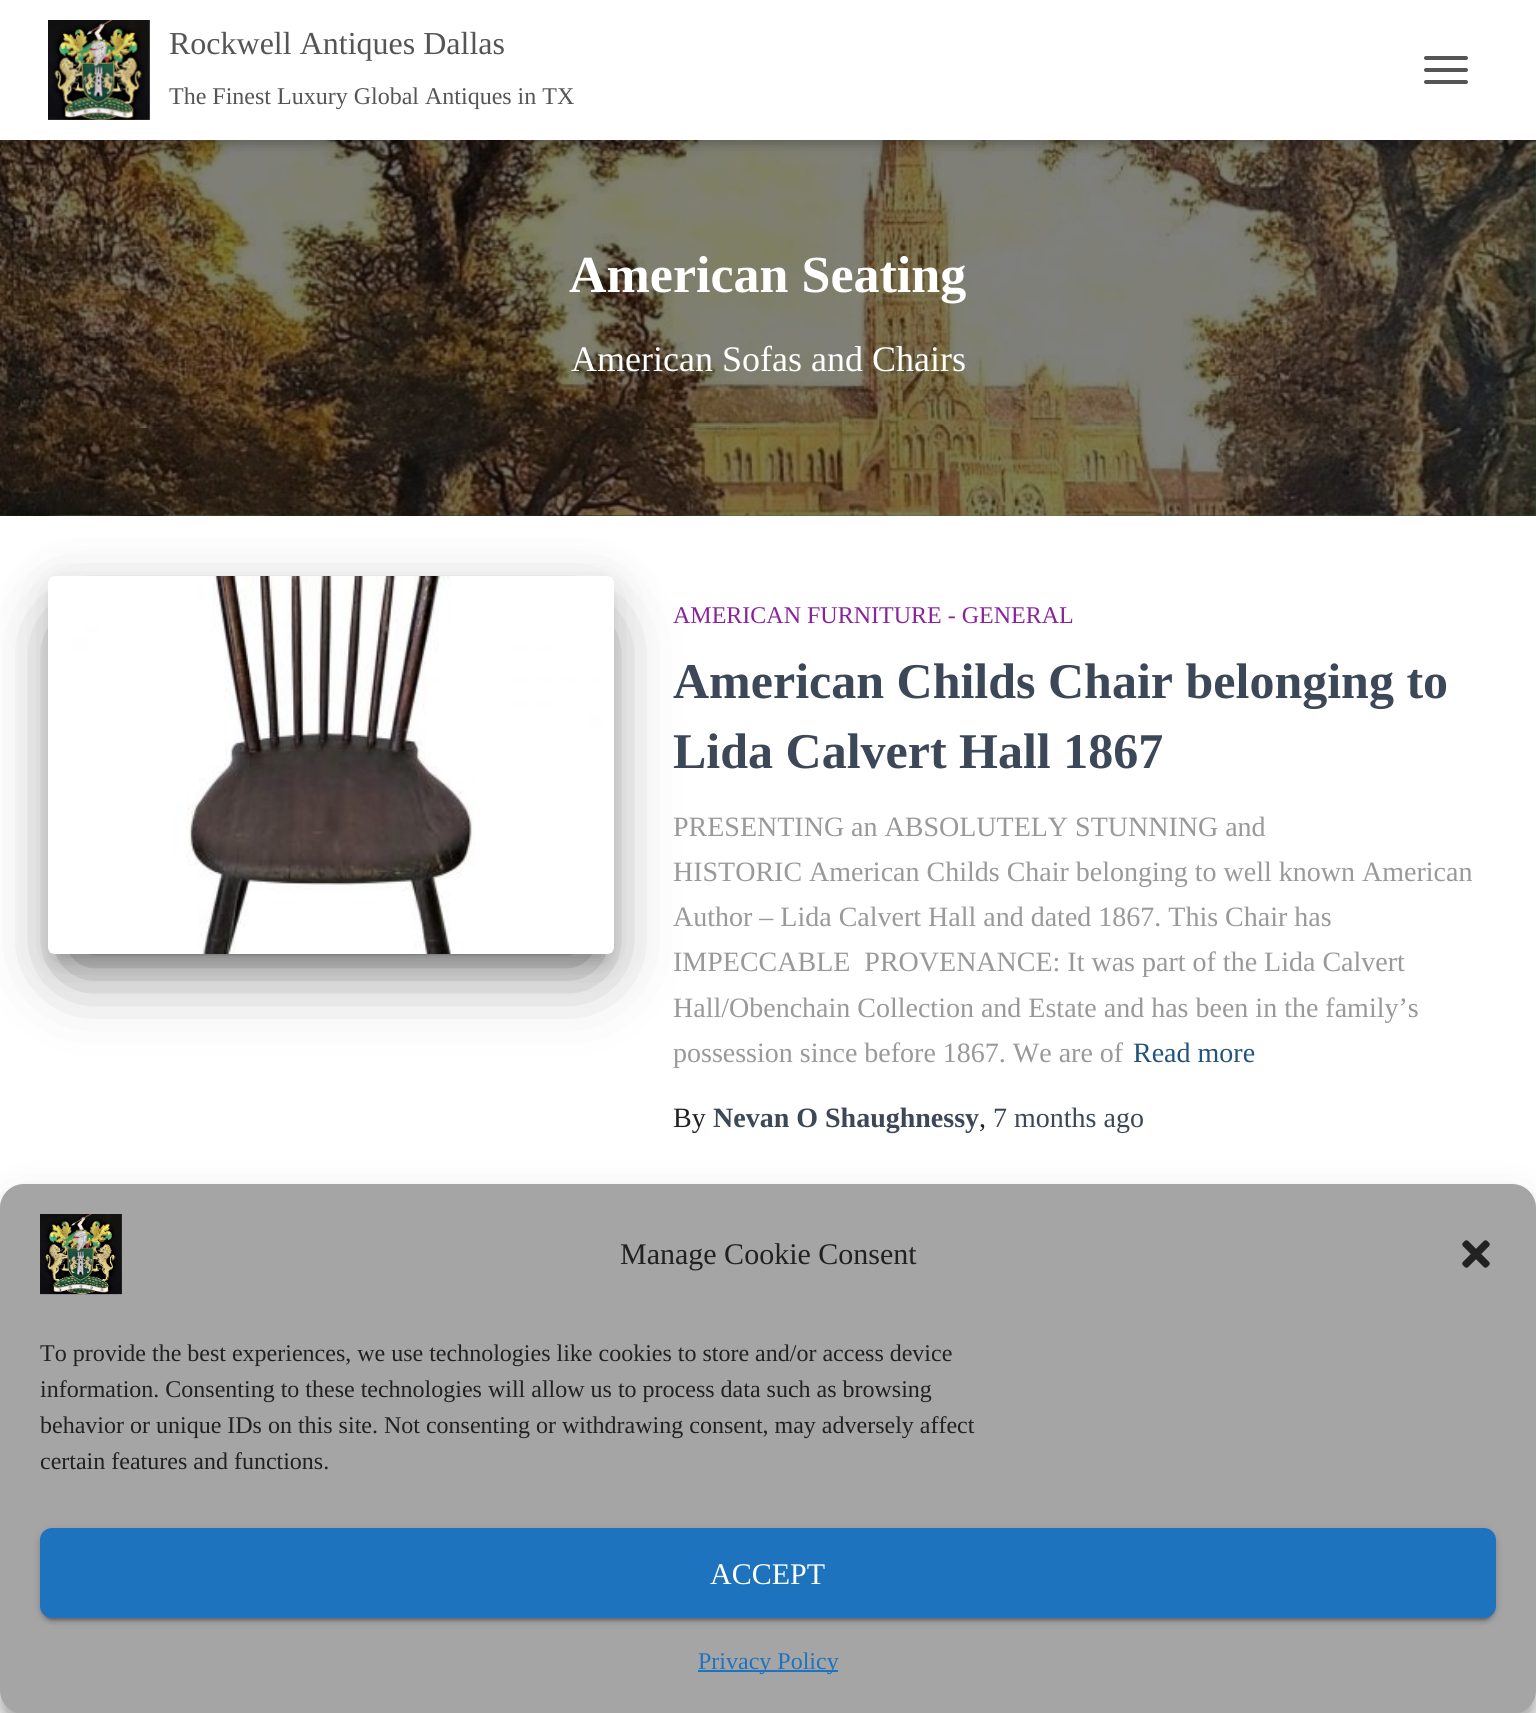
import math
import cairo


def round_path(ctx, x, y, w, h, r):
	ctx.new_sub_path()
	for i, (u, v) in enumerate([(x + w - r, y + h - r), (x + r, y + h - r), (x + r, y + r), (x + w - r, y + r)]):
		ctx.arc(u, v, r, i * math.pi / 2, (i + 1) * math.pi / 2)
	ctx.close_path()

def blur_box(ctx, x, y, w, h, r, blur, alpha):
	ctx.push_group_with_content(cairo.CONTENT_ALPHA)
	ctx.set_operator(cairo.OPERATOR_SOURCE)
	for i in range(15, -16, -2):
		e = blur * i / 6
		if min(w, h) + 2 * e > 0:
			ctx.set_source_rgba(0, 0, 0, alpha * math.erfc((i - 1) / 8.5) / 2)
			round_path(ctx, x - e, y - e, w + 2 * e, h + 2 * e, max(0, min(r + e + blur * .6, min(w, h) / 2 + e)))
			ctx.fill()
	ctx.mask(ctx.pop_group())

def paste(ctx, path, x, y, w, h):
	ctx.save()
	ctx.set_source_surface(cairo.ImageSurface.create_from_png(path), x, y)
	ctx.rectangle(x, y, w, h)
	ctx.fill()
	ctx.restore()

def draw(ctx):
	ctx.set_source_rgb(1, 1, 1)
	ctx.paint()
	paste(ctx, 'media/1.png', 0, 140, 1536, 376)
	paste(ctx, 'media/3.png', 0, 140, 1536, 376)
	ctx.set_source_rgba(0, 0, 0, 0.5)
	ctx.rectangle(0, 140, 1536, 376)
	ctx.fill()
	ctx.set_source_rgb(0, 0, 0)
	blur_box(ctx, 4, 12, 1528, 132, 0, 5, 0.1)
	blur_box(ctx, 0, 2, 1536, 140, 0, 10, 0.12)
	blur_box(ctx, 12, 14, 1512, 116, 0, 10, 0.42)
	ctx.set_source_rgb(1, 1, 1)
	ctx.rectangle(0, 0, 1536, 140)
	ctx.fill()
	paste(ctx, 'media/2.png', 48, 20, 102, 100)
	ctx.select_font_face('Liberation Serif')
	ctx.set_font_size(32)
	ctx.set_source_rgb(0.333, 0.333, 0.333)
	ctx.move_to(169, 54)
	ctx.show_text('Rockwell Antiques Dallas')
	ctx.set_font_size(24)
	ctx.move_to(169, 104)
	ctx.show_text('The Finest Luxury Global Antiques in TX')
	round_path(ctx, 1424, 56, 44, 4, 2)
	ctx.fill()
	round_path(ctx, 1424, 68, 44, 4, 2)
	ctx.fill()
	round_path(ctx, 1424, 80, 44, 4, 2)
	ctx.fill()
	ctx.select_font_face('Liberation Serif', cairo.FONT_SLANT_NORMAL, cairo.FONT_WEIGHT_BOLD)
	ctx.set_font_size(52)
	ctx.set_source_rgb(1, 1, 1)
	ctx.move_to(569, 292)
	ctx.show_text('American Seating')
	ctx.select_font_face('Liberation Serif')
	ctx.set_font_size(36)
	ctx.move_to(571, 371)
	ctx.show_text('American Sofas and Chairs')
	ctx.set_source_rgb(0, 0, 0)
	blur_box(ctx, 58, 602, 546, 358, 0, 10, 0.2)
	blur_box(ctx, 48, 584, 566, 378, 6, 25, 0.12)
	blur_box(ctx, 72, 632, 518, 330, 0, 38, 0.56)
	paste(ctx, 'media/4.png', 48, 576, 566, 378)
	ctx.set_font_size(24)
	ctx.set_source_rgb(0.537, 0.133, 0.608)
	ctx.move_to(673, 623)
	ctx.show_text('AMERICAN FURNITURE - GENERAL')
	ctx.select_font_face('Liberation Serif', cairo.FONT_SLANT_NORMAL, cairo.FONT_WEIGHT_BOLD)
	ctx.set_font_size(50)
	ctx.set_source_rgb(0.235, 0.282, 0.345)
	ctx.move_to(673, 698)
	ctx.show_text('American Childs Chair belonging to')
	ctx.move_to(673, 768)
	ctx.show_text('Lida Calvert Hall 1867')
	ctx.select_font_face('Liberation Serif')
	ctx.set_font_size(28)
	ctx.set_source_rgb(0.6, 0.6, 0.6)
	for x, y, s in [
		(673, 836, 'PRESENTING an ABSOLUTELY STUNNING and'),
		(673, 881, 'HISTORIC American Childs Chair belonging to well known American'),
		(673, 926, 'Author – Lida Calvert Hall and dated 1867. This Chair has'),
		(673, 971, 'IMPECCABLE  PROVENANCE: It was part of the Lida Calvert'),
		(673, 1017, 'Hall/Obenchain Collection and Estate and has been in the family’s'),
		(673, 1062, 'possession since before 1867. We are of'),
	]:
		ctx.move_to(x, y)
		ctx.show_text(s)
	ctx.set_source_rgb(0.137, 0.322, 0.486)
	ctx.move_to(1133, 1062)
	ctx.show_text('Read more')
	ctx.set_source_rgb(0.129, 0.129, 0.129)
	ctx.move_to(673, 1127)
	ctx.show_text('By')
	ctx.select_font_face('Liberation Serif', cairo.FONT_SLANT_NORMAL, cairo.FONT_WEIGHT_BOLD)
	ctx.set_source_rgb(0.235, 0.282, 0.345)
	ctx.move_to(713, 1127)
	ctx.show_text('Nevan O Shaughnessy')
	ctx.select_font_face('Liberation Serif')
	ctx.set_source_rgb(0.129, 0.129, 0.129)
	ctx.move_to(979, 1127)
	ctx.show_text(',')
	ctx.set_source_rgb(0.235, 0.282, 0.345)
	ctx.move_to(993, 1127)
	ctx.show_text('7 months ago')
	ctx.set_source_rgb(0, 0, 0)
	blur_box(ctx, 0, 1196, 1536, 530, 24, 6, 0.23)
	blur_box(ctx, 0, 1204, 1536, 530, 24, 20, 0.19)
	ctx.set_source_rgb(0.647, 0.647, 0.647)
	round_path(ctx, 0, 1184, 1536, 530, 24)
	ctx.fill()
	paste(ctx, 'media/5.png', 40, 1214, 82, 81)
	ctx.set_font_size(30)
	ctx.set_source_rgb(0.129, 0.129, 0.129)
	ctx.move_to(620, 1264)
	ctx.show_text('Manage Cookie Consent')
	paste(ctx, 'media/6.png', 1462, 1240, 28, 28)
	ctx.set_font_size(24)
	for x, y, s in [
		(40, 1361, 'To provide the best experiences, we use technologies like cookies to store and/or access device'),
		(40, 1397, 'information. Consenting to these technologies will allow us to process data such as browsing'),
		(40, 1433, 'behavior or unique IDs on this site. Not consenting or withdrawing consent, may adversely affect'),
		(40, 1469, 'certain features and functions.'),
	]:
		ctx.move_to(x, y)
		ctx.show_text(s)
	ctx.set_source_rgb(0.059, 0.004, 0.016)
	blur_box(ctx, 40, 1530, 1456, 90, 12, 5, 0.12)
	blur_box(ctx, 44, 1538, 1448, 82, 8, 1, 0.2)
	blur_box(ctx, 40, 1532, 1456, 90, 12, 2, 0.14)
	ctx.set_source_rgb(0.118, 0.451, 0.745)
	round_path(ctx, 41, 1529, 1454, 88, 11)
	ctx.fill_preserve()
	ctx.stroke()
	ctx.set_font_size(30)
	ctx.set_source_rgb(1, 1, 1)
	ctx.move_to(710, 1584)
	ctx.show_text('ACCEPT')
	ctx.set_source_rgb(0.118, 0.451, 0.745)
	ctx.rectangle(698, 1670, 140, 2)
	ctx.fill()
	ctx.set_font_size(24)
	ctx.move_to(698, 1669)
	ctx.show_text('Privacy Policy')


surface = cairo.ImageSurface(cairo.FORMAT_RGB24, 1536, 1713)
ctx = cairo.Context(surface)
options = cairo.FontOptions()
options.set_hint_metrics(cairo.HINT_METRICS_OFF)
options.set_hint_style(cairo.HINT_STYLE_NONE)
ctx.set_font_options(options)
ctx.set_miter_limit(4)
draw(ctx)
surface.write_to_png('image.png')
